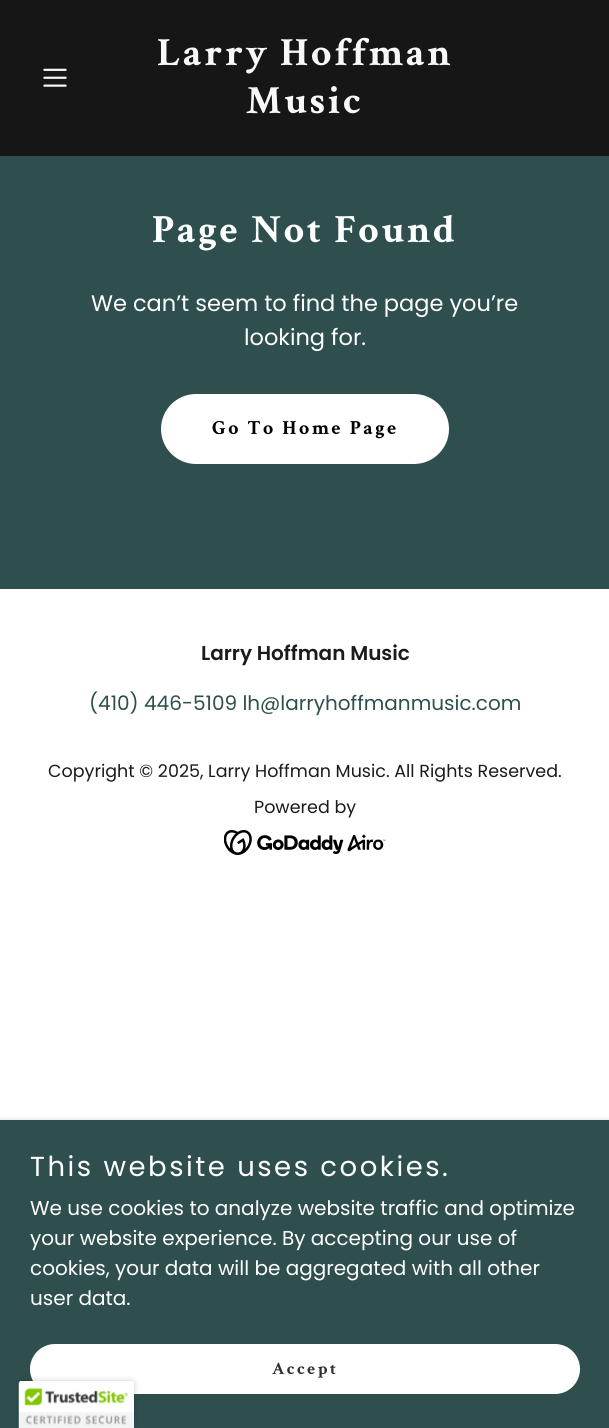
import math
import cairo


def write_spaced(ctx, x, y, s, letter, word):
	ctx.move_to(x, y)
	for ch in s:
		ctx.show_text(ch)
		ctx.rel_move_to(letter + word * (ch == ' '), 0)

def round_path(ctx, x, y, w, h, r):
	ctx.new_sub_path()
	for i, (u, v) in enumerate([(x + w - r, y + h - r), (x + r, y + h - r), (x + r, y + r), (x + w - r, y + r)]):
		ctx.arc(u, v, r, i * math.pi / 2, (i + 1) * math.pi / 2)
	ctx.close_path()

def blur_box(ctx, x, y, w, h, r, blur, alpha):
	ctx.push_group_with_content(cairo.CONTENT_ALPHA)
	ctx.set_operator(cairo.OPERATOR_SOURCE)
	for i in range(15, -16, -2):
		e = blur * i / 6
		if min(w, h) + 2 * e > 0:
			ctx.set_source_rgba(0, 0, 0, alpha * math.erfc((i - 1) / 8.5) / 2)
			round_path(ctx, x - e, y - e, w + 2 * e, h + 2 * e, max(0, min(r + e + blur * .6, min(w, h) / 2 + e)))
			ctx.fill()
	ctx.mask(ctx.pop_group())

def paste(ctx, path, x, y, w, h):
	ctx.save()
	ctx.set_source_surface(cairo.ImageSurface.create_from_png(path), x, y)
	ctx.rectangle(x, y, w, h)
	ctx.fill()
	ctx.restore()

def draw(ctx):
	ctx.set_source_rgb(1, 1, 1)
	ctx.paint()
	ctx.set_source_rgb(0.086, 0.086, 0.086)
	ctx.rectangle(0, 0, 609, 156)
	ctx.fill()
	paste(ctx, 'media/1.png', 43, 68, 24, 19)
	ctx.select_font_face('Crimson Text', cairo.FONT_SLANT_NORMAL, cairo.FONT_WEIGHT_BOLD)
	ctx.set_font_size(40)
	ctx.set_source_rgb(0.969, 0.969, 0.969)
	write_spaced(ctx, 157, 65, 'Larry Hoffman', 2.5, 0)
	write_spaced(ctx, 246, 113, 'Music', 2.5, 0)
	ctx.set_source_rgb(0.184, 0.31, 0.31)
	ctx.rectangle(0, 156, 609, 433)
	ctx.fill()
	ctx.set_source_rgb(1, 1, 1)
	write_spaced(ctx, 152, 242, 'Page Not Found', 2.5, 0)
	ctx.select_font_face('Poppins')
	ctx.set_font_size(22.5)
	ctx.move_to(91, 311)
	ctx.show_text('We can’t seem to find the page you’re')
	ctx.move_to(244, 345)
	ctx.show_text('looking for.')
	round_path(ctx, 161, 394, 288, 70, 35)
	ctx.fill()
	ctx.select_font_face('Crimson Text', cairo.FONT_SLANT_NORMAL, cairo.FONT_WEIGHT_BOLD)
	ctx.set_font_size(20)
	ctx.set_source_rgb(0, 0, 0)
	write_spaced(ctx, 212, 434, 'Go To Home Page', 2.5, 0)
	ctx.select_font_face('Poppins SemiBold')
	ctx.set_source_rgb(0.106, 0.106, 0.106)
	ctx.move_to(201, 660)
	ctx.show_text('Larry Hoffman Music')
	ctx.select_font_face('Poppins')
	ctx.set_source_rgb(0.184, 0.31, 0.31)
	ctx.move_to(89, 710)
	ctx.show_text('(410) 446-5109 lh@larryhoffmanmusic.com')
	ctx.set_font_size(17.5)
	ctx.set_source_rgb(0.106, 0.106, 0.106)
	ctx.move_to(48, 777)
	ctx.show_text('Copyright © 2025, Larry Hoffman Music. All Rights Reserved.')
	ctx.move_to(254, 813)
	ctx.show_text('Powered by')
	paste(ctx, 'media/2.png', 224, 830, 162, 25)
	ctx.set_source_rgb(0, 0, 0)
	blur_box(ctx, 0, 1123, 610, 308, 0, 4, 0.3)
	ctx.set_source_rgb(0.184, 0.31, 0.31)
	ctx.rectangle(0, 1120, 609, 308)
	ctx.fill()
	ctx.set_font_size(27.5)
	ctx.set_source_rgb(1, 1, 1)
	write_spaced(ctx, 30, 1176, 'This website uses cookies.', 2.5, 0)
	ctx.set_font_size(20)
	for x, y, s in [
		(30, 1215, 'We use cookies to analyze website traffic and optimize'),
		(30, 1245, 'your website experience. By accepting our use of'),
		(30, 1275, 'cookies, your data will be aggregated with all other'),
		(30, 1305, 'user data.'),
	]:
		ctx.move_to(x, y)
		ctx.show_text(s)
	round_path(ctx, 30, 1344, 550, 50, 25)
	ctx.fill()
	ctx.select_font_face('Crimson Text', cairo.FONT_SLANT_NORMAL, cairo.FONT_WEIGHT_BOLD)
	ctx.set_font_size(17.5)
	ctx.set_source_rgb(0.188, 0.188, 0.188)
	write_spaced(ctx, 272, 1374, 'Accept', 2.5, 0)
	ctx.set_source_rgb(0, 0, 0)
	blur_box(ctx, 19, 1381, 115, 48, 2.5, 3, 0.2)
	ctx.set_source_rgb(1, 1, 1)
	ctx.new_path()
	ctx.move_to(21.5, 1381)
	ctx.line_to(131.5, 1381)
	ctx.curve_to(133, 1381, 134, 1382, 134, 1383.5)
	ctx.line_to(134, 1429)
	ctx.line_to(19, 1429)
	ctx.line_to(19, 1383.5)
	ctx.curve_to(19, 1382, 20, 1381, 21.5, 1381)
	ctx.close_path()
	ctx.fill()
	paste(ctx, 'media/3.png', 18, 1381, 116, 47)


surface = cairo.ImageSurface(cairo.FORMAT_RGB24, 609, 1428)
ctx = cairo.Context(surface)
options = cairo.FontOptions()
options.set_hint_metrics(cairo.HINT_METRICS_OFF)
options.set_hint_style(cairo.HINT_STYLE_NONE)
ctx.set_font_options(options)
ctx.set_miter_limit(4)
draw(ctx)
surface.write_to_png('image.png')
